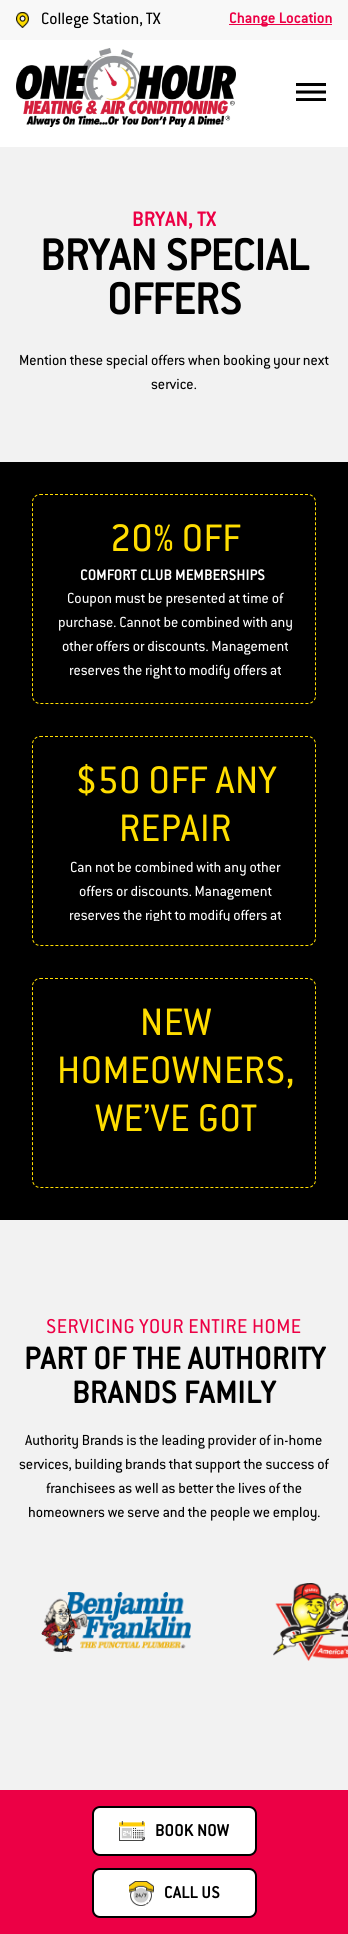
import math
import cairo


def write_spaced(ctx, x, y, s, letter, word):
	ctx.move_to(x, y)
	for ch in s:
		ctx.show_text(ch)
		ctx.rel_move_to(letter + word * (ch == ' '), 0)

def round_path(ctx, x, y, w, h, r):
	ctx.new_sub_path()
	for i, (u, v) in enumerate([(x + w - r, y + h - r), (x + r, y + h - r), (x + r, y + r), (x + w - r, y + r)]):
		ctx.arc(u, v, r, i * math.pi / 2, (i + 1) * math.pi / 2)
	ctx.close_path()

def paste(ctx, path, x, y, w, h):
	ctx.save()
	ctx.set_source_surface(cairo.ImageSurface.create_from_png(path), x, y)
	ctx.rectangle(x, y, w, h)
	ctx.fill()
	ctx.restore()

def draw(ctx):
	ctx.set_source_rgb(1, 1, 1)
	ctx.paint()
	ctx.set_source_rgb(0.969, 0.969, 0.969)
	ctx.rectangle(0, 0, 348, 40)
	ctx.fill()
	paste(ctx, 'media/1.png', 16, 12, 13, 16)
	ctx.select_font_face('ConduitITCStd')
	ctx.set_font_size(18)
	ctx.set_source_rgb(0, 0, 0)
	ctx.move_to(41, 24)
	ctx.show_text('College Station, TX')
	ctx.set_source_rgb(0.922, 0, 0.271)
	ctx.rectangle(229, 24, 103, 1)
	ctx.fill()
	ctx.select_font_face('ConduitITCStd', cairo.FONT_SLANT_NORMAL, cairo.FONT_WEIGHT_BOLD)
	ctx.set_font_size(16)
	write_spaced(ctx, 229, 23, 'Change Location', 0.4, 0)
	paste(ctx, 'media/2.png', 16, 48, 220, 79)
	paste(ctx, 'media/3.png', 296, 83, 30, 18)
	ctx.set_source_rgb(0.949, 0.949, 0.949)
	ctx.rectangle(0, 147, 348, 1643)
	ctx.fill()
	ctx.set_font_size(22)
	ctx.set_source_rgb(0.922, 0, 0.271)
	write_spaced(ctx, 132, 226, 'BRYAN, TX', 0.5, 0)
	ctx.set_font_size(48)
	ctx.set_source_rgb(0, 0, 0)
	ctx.move_to(40, 270)
	ctx.show_text('BRYAN SPECIAL')
	ctx.move_to(107, 314)
	ctx.show_text('OFFERS')
	ctx.select_font_face('ConduitITCStd')
	ctx.set_font_size(16)
	ctx.move_to(19, 365)
	ctx.show_text('Mention these special offers when booking your next')
	ctx.move_to(151, 389)
	ctx.show_text('service.')
	ctx.rectangle(0, 462, 348, 758)
	ctx.fill()
	ctx.new_path()
	ctx.move_to(40, 494.5)
	ctx.line_to(308, 494.5)
	ctx.curve_to(312, 494.5, 315.5, 498, 315.5, 502)
	ctx.line_to(315.5, 696)
	ctx.curve_to(315.5, 700, 312, 703.5, 308, 703.5)
	ctx.line_to(40, 703.5)
	ctx.curve_to(36, 703.5, 32.5, 700, 32.5, 696)
	ctx.line_to(32.5, 502)
	ctx.curve_to(32.5, 498, 36, 494.5, 40, 494.5)
	ctx.close_path()
	ctx.set_source_rgb(1, 0.867, 0)
	ctx.set_line_width(1)
	ctx.set_dash([3, 2])
	ctx.stroke()
	ctx.set_font_size(42)
	write_spaced(ctx, 110, 551, '20% OFF', 0.5, 0)
	ctx.select_font_face('ConduitITCStd', cairo.FONT_SLANT_NORMAL, cairo.FONT_WEIGHT_BOLD)
	ctx.set_font_size(16)
	ctx.set_source_rgb(1, 1, 1)
	write_spaced(ctx, 80, 580, 'COMFORT CLUB MEMBERSHIPS', 0.3, 0)
	ctx.select_font_face('ConduitITCStd')
	for x, y, s in [
		(67, 603, 'Coupon must be presented at time of'),
		(58, 627, 'purchase. Cannot be combined with any'),
		(62, 651, 'other offers or discounts. Management'),
		(69, 675, 'reserves the right to modify offers at'),
	]:
		ctx.move_to(x, y)
		ctx.show_text(s)
	ctx.new_path()
	ctx.move_to(40, 736.5)
	ctx.line_to(308, 736.5)
	ctx.curve_to(312, 736.5, 315.5, 740, 315.5, 744)
	ctx.line_to(315.5, 938)
	ctx.curve_to(315.5, 942, 312, 945.5, 308, 945.5)
	ctx.line_to(40, 945.5)
	ctx.curve_to(36, 945.5, 32.5, 942, 32.5, 938)
	ctx.line_to(32.5, 744)
	ctx.curve_to(32.5, 740, 36, 736.5, 40, 736.5)
	ctx.close_path()
	ctx.set_source_rgb(1, 0.867, 0)
	ctx.stroke()
	ctx.set_font_size(42)
	write_spaced(ctx, 76, 793, '$50 OFF ANY', 0.5, 0)
	write_spaced(ctx, 119, 841, 'REPAIR', 0.5, 0)
	ctx.set_font_size(16)
	ctx.set_source_rgb(1, 1, 1)
	ctx.move_to(70, 872)
	ctx.show_text('Can not be combined with any other')
	ctx.move_to(79, 896)
	ctx.show_text('offers or discounts. Management')
	ctx.save()
	ctx.rectangle(57, 761, 244, 160)
	ctx.clip()
	ctx.move_to(69, 920)
	ctx.show_text('reserves the right to modify offers at')
	ctx.restore()
	ctx.new_path()
	ctx.move_to(40, 978.5)
	ctx.line_to(308, 978.5)
	ctx.curve_to(312, 978.5, 315.5, 982, 315.5, 986)
	ctx.line_to(315.5, 1180)
	ctx.curve_to(315.5, 1184, 312, 1187.5, 308, 1187.5)
	ctx.line_to(40, 1187.5)
	ctx.curve_to(36, 1187.5, 32.5, 1184, 32.5, 1180)
	ctx.line_to(32.5, 986)
	ctx.curve_to(32.5, 982, 36, 978.5, 40, 978.5)
	ctx.close_path()
	ctx.set_source_rgb(1, 0.867, 0)
	ctx.stroke()
	ctx.set_font_size(42)
	for x, y, s in [
		(140, 1035, 'NEW'),
		(57, 1083, 'HOMEOWNERS,'),
		(95, 1131, 'WE’VE GOT'),
	]:
		write_spaced(ctx, x, y, s, 0.5, 0)
	ctx.set_font_size(22)
	ctx.set_source_rgb(0.922, 0, 0.271)
	write_spaced(ctx, 46, 1333, 'SERVICING YOUR ENTIRE HOME', 0.45, 0)
	ctx.select_font_face('ConduitITCStd', cairo.FONT_SLANT_NORMAL, cairo.FONT_WEIGHT_BOLD)
	ctx.set_font_size(34)
	ctx.set_source_rgb(0, 0, 0)
	write_spaced(ctx, 24, 1369, 'PART OF THE AUTHORITY', 0.5, 0)
	write_spaced(ctx, 72, 1403, 'BRANDS FAMILY', 0.5, 0)
	ctx.select_font_face('ConduitITCStd')
	ctx.set_font_size(16)
	for x, y, s in [
		(25, 1445, 'Authority Brands is the leading provider of in-home'),
		(19, 1469, 'services, building brands that support the success of'),
		(46, 1493, 'franchisees as well as better the lives of the'),
		(28, 1517, 'homeowners we serve and the people we employ.'),
	]:
		ctx.move_to(x, y)
		ctx.show_text(s)
	paste(ctx, 'media/4.png', 41, 1592, 150, 60)
	paste(ctx, 'media/5.png', 273, 1583, 75, 78)
	ctx.set_source_rgb(0.922, 0, 0.271)
	ctx.rectangle(0, 1790, 348, 144)
	ctx.fill()
	ctx.set_source_rgb(1, 1, 1)
	round_path(ctx, 93, 1807, 163, 48, 7)
	ctx.fill_preserve()
	ctx.set_source_rgb(0, 0, 0)
	ctx.set_line_width(2)
	ctx.set_dash([])
	ctx.stroke()
	paste(ctx, 'media/6.png', 119, 1821, 26, 20)
	ctx.select_font_face('ConduitITCStd', cairo.FONT_SLANT_NORMAL, cairo.FONT_WEIGHT_BOLD)
	ctx.set_font_size(18)
	write_spaced(ctx, 155, 1836, 'BOOK NOW', 0.4, 0)
	ctx.set_source_rgb(1, 1, 1)
	round_path(ctx, 93, 1869, 163, 48, 7)
	ctx.fill_preserve()
	ctx.set_source_rgb(0, 0, 0)
	ctx.stroke()
	paste(ctx, 'media/7.png', 129, 1881, 25, 25)
	write_spaced(ctx, 164, 1898, 'CALL US', 0.4, 0)


surface = cairo.ImageSurface(cairo.FORMAT_RGB24, 348, 1934)
ctx = cairo.Context(surface)
options = cairo.FontOptions()
options.set_hint_metrics(cairo.HINT_METRICS_OFF)
options.set_hint_style(cairo.HINT_STYLE_NONE)
ctx.set_font_options(options)
ctx.set_miter_limit(4)
draw(ctx)
surface.write_to_png('image.png')
